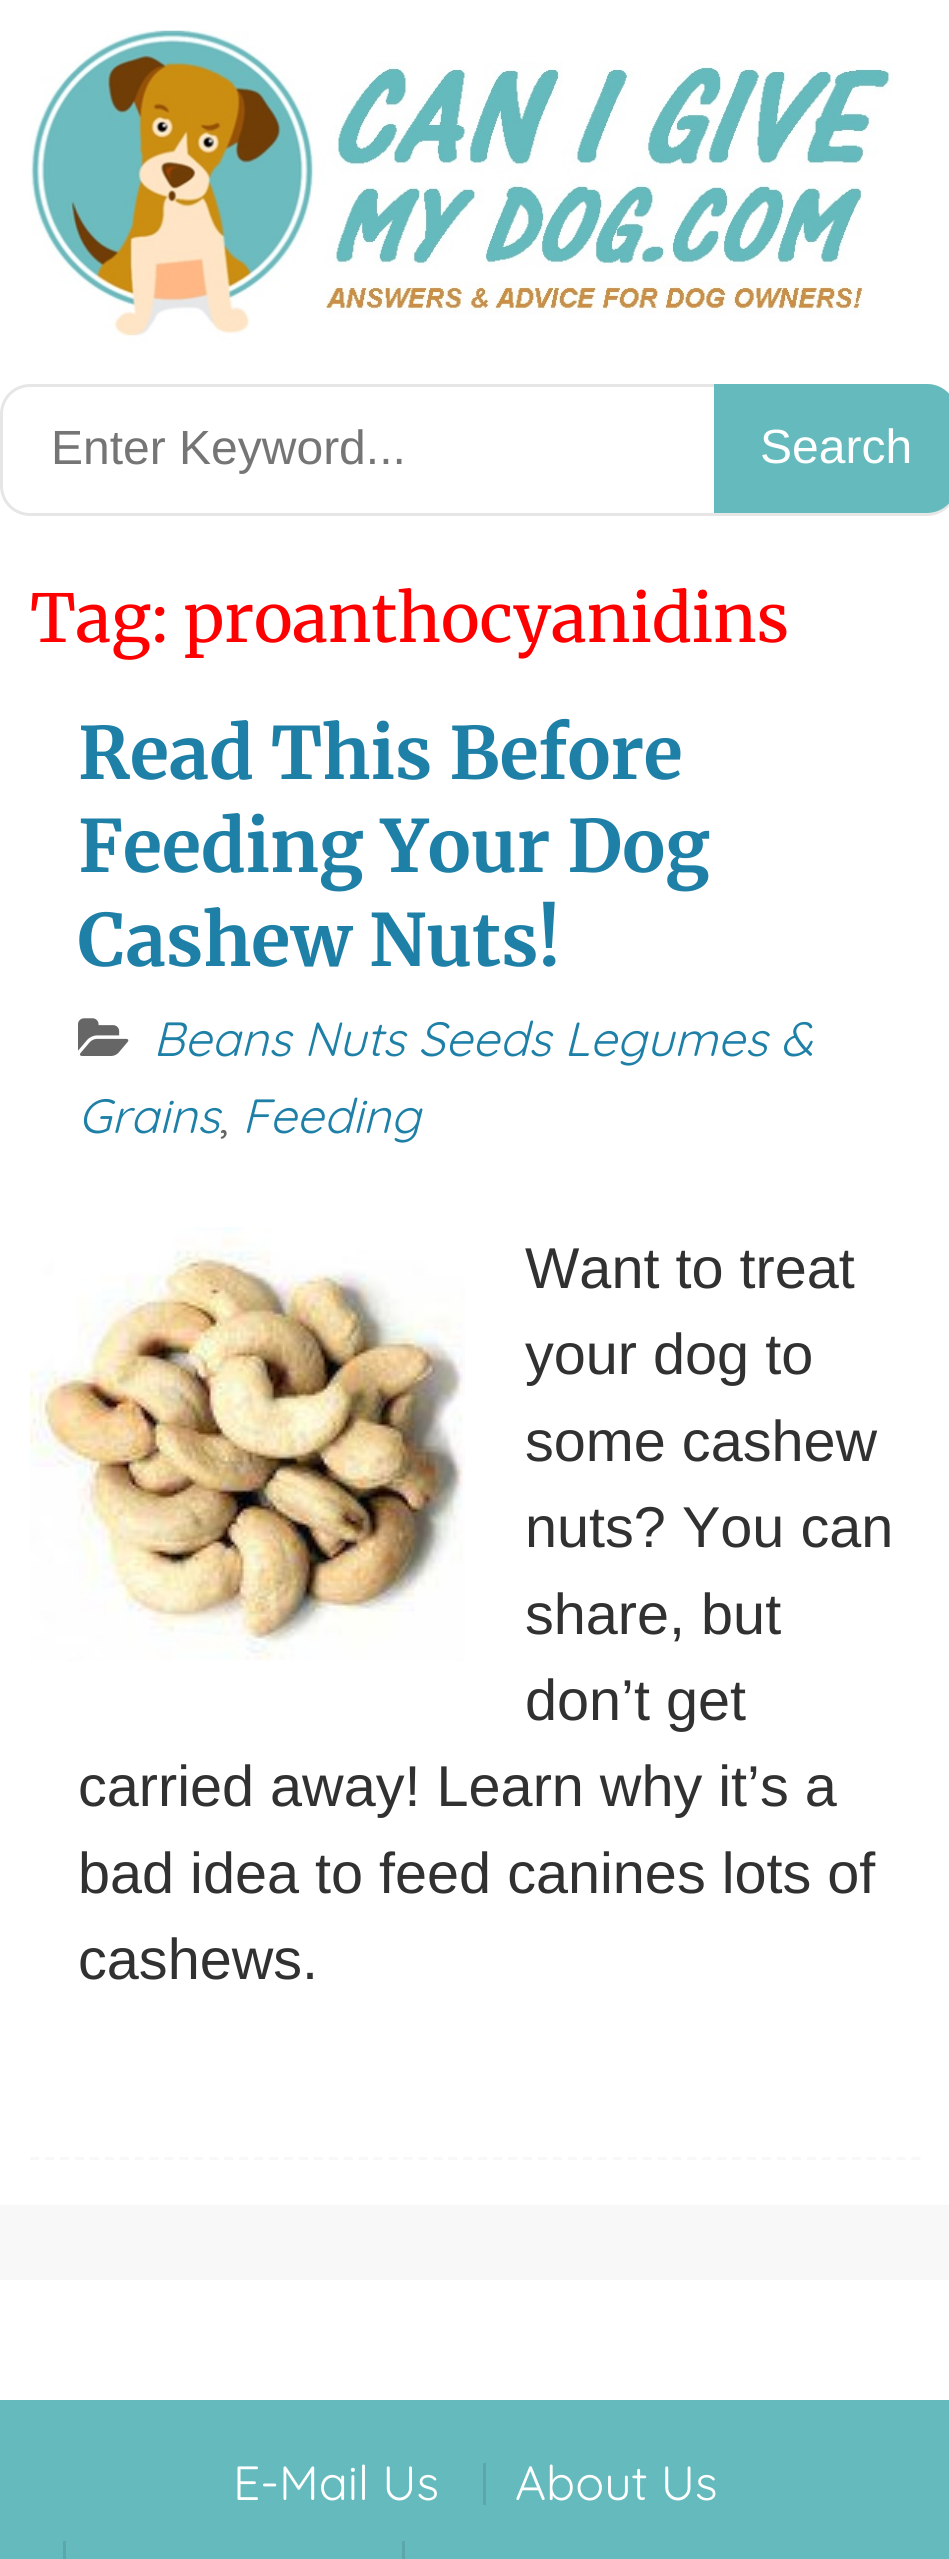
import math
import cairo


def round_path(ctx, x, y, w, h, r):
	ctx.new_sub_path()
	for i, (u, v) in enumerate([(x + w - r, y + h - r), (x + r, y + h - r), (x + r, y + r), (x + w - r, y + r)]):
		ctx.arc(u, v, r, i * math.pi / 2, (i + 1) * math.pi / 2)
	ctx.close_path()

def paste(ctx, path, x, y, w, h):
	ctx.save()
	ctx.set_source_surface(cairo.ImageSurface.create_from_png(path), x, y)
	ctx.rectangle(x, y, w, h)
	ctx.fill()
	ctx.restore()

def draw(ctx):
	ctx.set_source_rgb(1, 1, 1)
	ctx.paint()
	paste(ctx, 'media/1.png', 30, 30, 863, 315)
	round_path(ctx, 1.5, 385.5, 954, 129, 28.5)
	ctx.set_source_rgb(0.902, 0.902, 0.902)
	ctx.set_line_width(3)
	ctx.stroke()
	ctx.select_font_face('Liberation Sans')
	ctx.set_font_size(48)
	ctx.set_source_rgb(0.459, 0.459, 0.459)
	ctx.move_to(51, 464)
	ctx.show_text('Enter Keyword...')
	ctx.set_source_rgb(0.396, 0.729, 0.741)
	ctx.new_path()
	ctx.move_to(714, 384)
	ctx.line_to(927, 384)
	ctx.curve_to(943.5, 384, 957, 397.5, 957, 414)
	ctx.line_to(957, 483)
	ctx.curve_to(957, 499.5, 943.5, 513, 927, 513)
	ctx.line_to(714, 513)
	ctx.close_path()
	ctx.fill()
	ctx.set_source_rgb(1, 1, 1)
	ctx.move_to(760, 463)
	ctx.show_text('Search')
	ctx.select_font_face('Merriweather')
	ctx.set_font_size(66)
	ctx.set_source_rgb(1, 0, 0)
	ctx.move_to(30, 642)
	ctx.show_text('Tag: proanthocyanidins')
	ctx.new_path()
	ctx.move_to(30, 2158.5)
	ctx.line_to(921, 2158.5)
	ctx.set_source_rgb(0.969, 0.969, 0.969)
	ctx.set_dash([9, 5.94])
	ctx.stroke()
	ctx.select_font_face('Merriweather', cairo.FONT_SLANT_NORMAL, cairo.FONT_WEIGHT_BOLD)
	ctx.set_font_size(72)
	ctx.set_source_rgb(0.118, 0.502, 0.655)
	for x, y, s in [
		(78, 779, 'Read This Before'),
		(78, 872, 'Feeding Your Dog'),
		(78, 966, 'Cashew Nuts!'),
	]:
		ctx.move_to(x, y)
		ctx.show_text(s)
	paste(ctx, 'media/2.png', 78, 1018, 51, 38)
	ctx.select_font_face('Quicksand', cairo.FONT_SLANT_ITALIC)
	ctx.set_font_size(48)
	ctx.move_to(153, 1056)
	ctx.show_text('Beans Nuts Seeds Legumes &')
	ctx.move_to(78, 1133)
	ctx.show_text('Grains')
	ctx.select_font_face('Quicksand')
	ctx.set_source_rgb(0.4, 0.4, 0.4)
	ctx.move_to(219, 1133)
	ctx.show_text(',')
	ctx.select_font_face('Quicksand', cairo.FONT_SLANT_ITALIC)
	ctx.set_source_rgb(0.118, 0.502, 0.655)
	ctx.move_to(242, 1133)
	ctx.show_text('Feeding')
	paste(ctx, 'media/3.png', 30, 1227, 435, 434)
	ctx.select_font_face('Liberation Sans')
	ctx.set_font_size(57.6)
	ctx.set_source_rgb(0.192, 0.192, 0.196)
	for x, y, s in [
		(525, 1288, 'Want to treat'),
		(525, 1374, 'your dog to'),
		(525, 1461, 'some cashew'),
		(525, 1547, 'nuts? You can'),
		(525, 1634, 'share, but'),
		(525, 1720, 'don’t get'),
		(78, 1806, 'carried away! Learn why it’s a'),
		(78, 1893, 'bad idea to feed canines lots of'),
		(78, 1979, 'cashews.'),
	]:
		ctx.move_to(x, y)
		ctx.show_text(s)
	ctx.set_source_rgb(0.969, 0.969, 0.969)
	ctx.rectangle(0, 2205, 949, 75)
	ctx.fill()
	ctx.set_source_rgb(0.396, 0.729, 0.741)
	ctx.rectangle(0, 2400, 949, 159)
	ctx.fill()
	ctx.select_font_face('Quicksand')
	ctx.set_font_size(48)
	ctx.set_source_rgb(1, 1, 1)
	ctx.move_to(233, 2500)
	ctx.show_text('E-Mail Us')
	ctx.set_source_rgb(0.357, 0.655, 0.667)
	ctx.rectangle(483, 2463, 3, 42)
	ctx.fill()
	ctx.set_source_rgb(1, 1, 1)
	ctx.move_to(515, 2500)
	ctx.show_text('About Us')
	ctx.set_source_rgb(0.357, 0.655, 0.667)
	ctx.rectangle(63, 2541, 3, 18)
	ctx.fill()
	ctx.rectangle(402, 2541, 3, 18)
	ctx.fill()


surface = cairo.ImageSurface(cairo.FORMAT_RGB24, 949, 2559)
ctx = cairo.Context(surface)
options = cairo.FontOptions()
options.set_hint_metrics(cairo.HINT_METRICS_OFF)
options.set_hint_style(cairo.HINT_STYLE_NONE)
ctx.set_font_options(options)
ctx.set_miter_limit(4)
draw(ctx)
surface.write_to_png('image.png')
